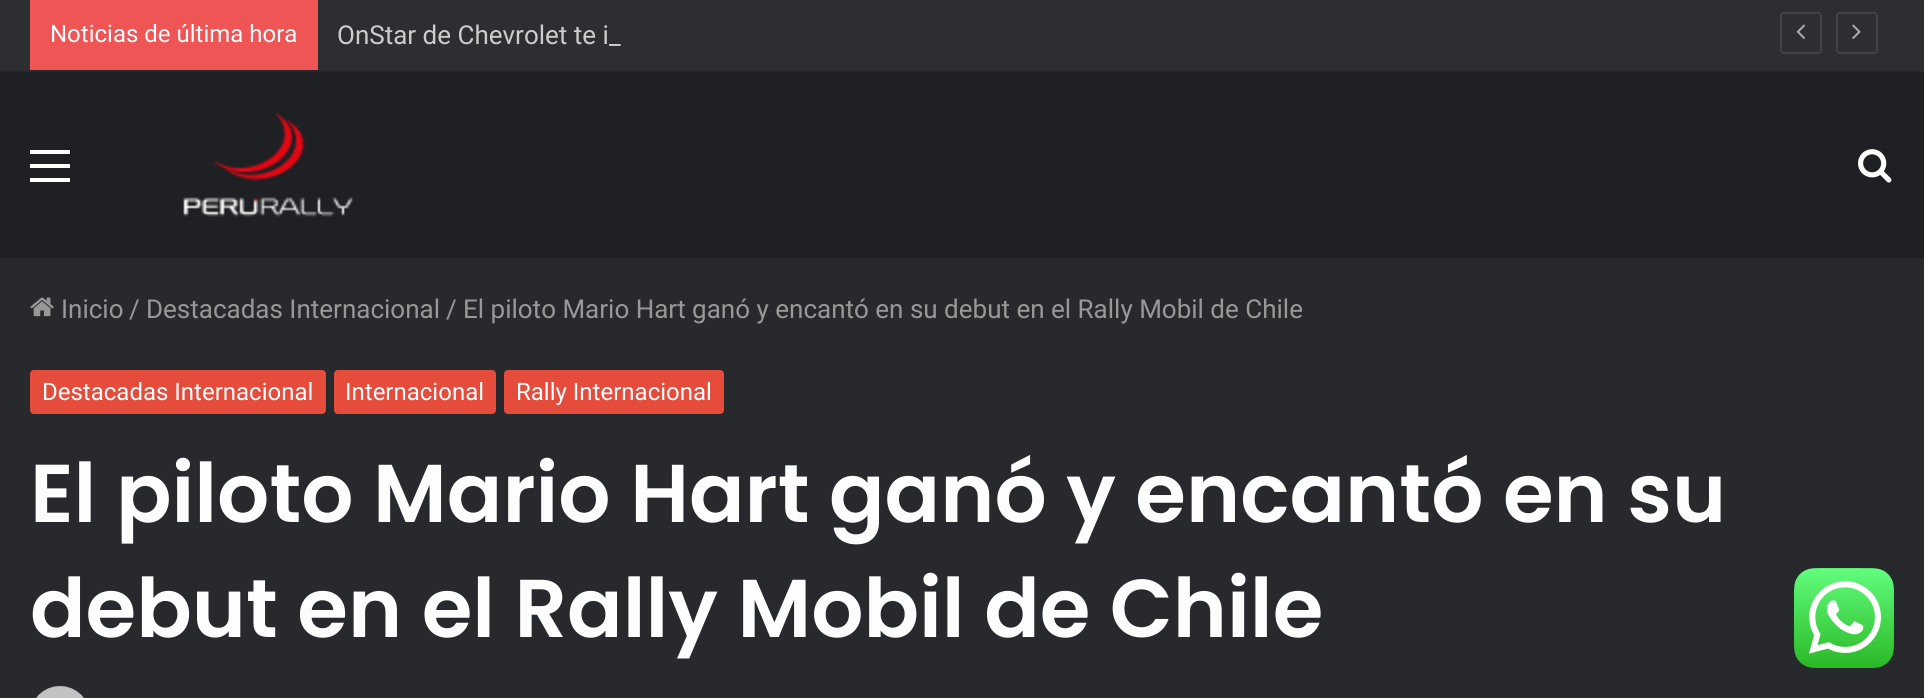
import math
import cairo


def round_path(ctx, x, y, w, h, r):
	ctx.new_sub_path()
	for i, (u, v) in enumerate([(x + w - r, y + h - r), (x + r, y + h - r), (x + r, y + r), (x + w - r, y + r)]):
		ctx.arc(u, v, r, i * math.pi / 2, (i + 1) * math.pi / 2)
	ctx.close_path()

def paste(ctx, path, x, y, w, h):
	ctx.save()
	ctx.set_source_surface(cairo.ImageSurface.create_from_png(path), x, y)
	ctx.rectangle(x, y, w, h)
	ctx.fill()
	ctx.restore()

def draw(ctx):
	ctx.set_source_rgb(0.153, 0.161, 0.176)
	ctx.paint()
	ctx.set_source_rgb(0.173, 0.18, 0.196)
	ctx.rectangle(0, 0, 1924, 70)
	ctx.fill()
	ctx.set_source_rgb(0.941, 0.333, 0.333)
	ctx.rectangle(30, 0, 288, 70)
	ctx.fill()
	ctx.select_font_face('Roboto')
	ctx.set_font_size(24)
	ctx.set_source_rgb(0.992, 0.992, 0.992)
	ctx.move_to(50, 42)
	ctx.show_text('Noticias de última hora')
	ctx.set_font_size(26)
	ctx.set_source_rgb(0.8, 0.8, 0.8)
	ctx.move_to(337, 44)
	ctx.show_text('OnStar de Chevrolet te i_')
	round_path(ctx, 1781, 13, 40, 40, 3)
	ctx.set_source_rgb(0.255, 0.263, 0.278)
	ctx.stroke()
	paste(ctx, 'media/1.png', 1796, 24, 9, 15)
	round_path(ctx, 1837, 13, 40, 40, 3)
	ctx.stroke()
	paste(ctx, 'media/2.png', 1852, 24, 9, 15)
	ctx.set_source_rgb(0.122, 0.125, 0.141)
	ctx.rectangle(0, 72, 1924, 186)
	ctx.fill()
	ctx.set_source_rgb(1, 1, 1)
	ctx.rectangle(30, 164, 40, 4)
	ctx.rectangle(30, 150, 40, 4)
	ctx.rectangle(30, 178, 40, 4)
	ctx.fill()
	paste(ctx, 'media/3.png', 183, 112, 170, 105)
	paste(ctx, 'media/4.png', 1858, 149, 34, 34)
	paste(ctx, 'media/5.png', 30, 297, 24, 20)
	ctx.set_source_rgb(0.596, 0.596, 0.596)
	for x, y, s in [
		(61, 318, 'Inicio'),
		(129, 318, '/'),
		(146, 318, 'Destacadas Internacional'),
		(446, 318, '/'),
		(463, 318, 'El piloto Mario Hart ganó y encantó en su debut en el Rally Mobil de Chile'),
	]:
		ctx.move_to(x, y)
		ctx.show_text(s)
	ctx.set_source_rgb(0.898, 0.298, 0.235)
	round_path(ctx, 30, 370, 296, 44, 4)
	ctx.fill()
	ctx.set_font_size(24)
	ctx.set_source_rgb(0.992, 0.992, 0.992)
	ctx.move_to(42, 400)
	ctx.show_text('Destacadas Internacional')
	ctx.set_source_rgb(0.898, 0.298, 0.235)
	round_path(ctx, 334, 370, 162, 44, 4)
	ctx.fill()
	ctx.set_source_rgb(0.992, 0.992, 0.992)
	ctx.move_to(345, 400)
	ctx.show_text('Internacional')
	ctx.set_source_rgb(0.898, 0.298, 0.235)
	round_path(ctx, 504, 370, 220, 44, 4)
	ctx.fill()
	ctx.set_source_rgb(0.992, 0.992, 0.992)
	ctx.move_to(516, 400)
	ctx.show_text('Rally Internacional')
	ctx.select_font_face('Poppins SemiBold')
	ctx.set_font_size(82)
	ctx.move_to(30, 522)
	ctx.show_text('El piloto Mario Hart ganó y encantó en su')
	ctx.move_to(30, 637)
	ctx.show_text('debut en el Rally Mobil de Chile')
	paste(ctx, 'media/6.png', 36, 686, 48, 12)
	paste(ctx, 'media/7.png', 1794, 568, 100, 100)


surface = cairo.ImageSurface(cairo.FORMAT_RGB24, 1924, 698)
ctx = cairo.Context(surface)
options = cairo.FontOptions()
options.set_hint_metrics(cairo.HINT_METRICS_OFF)
options.set_hint_style(cairo.HINT_STYLE_NONE)
ctx.set_font_options(options)
ctx.set_miter_limit(4)
draw(ctx)
surface.write_to_png('image.png')
